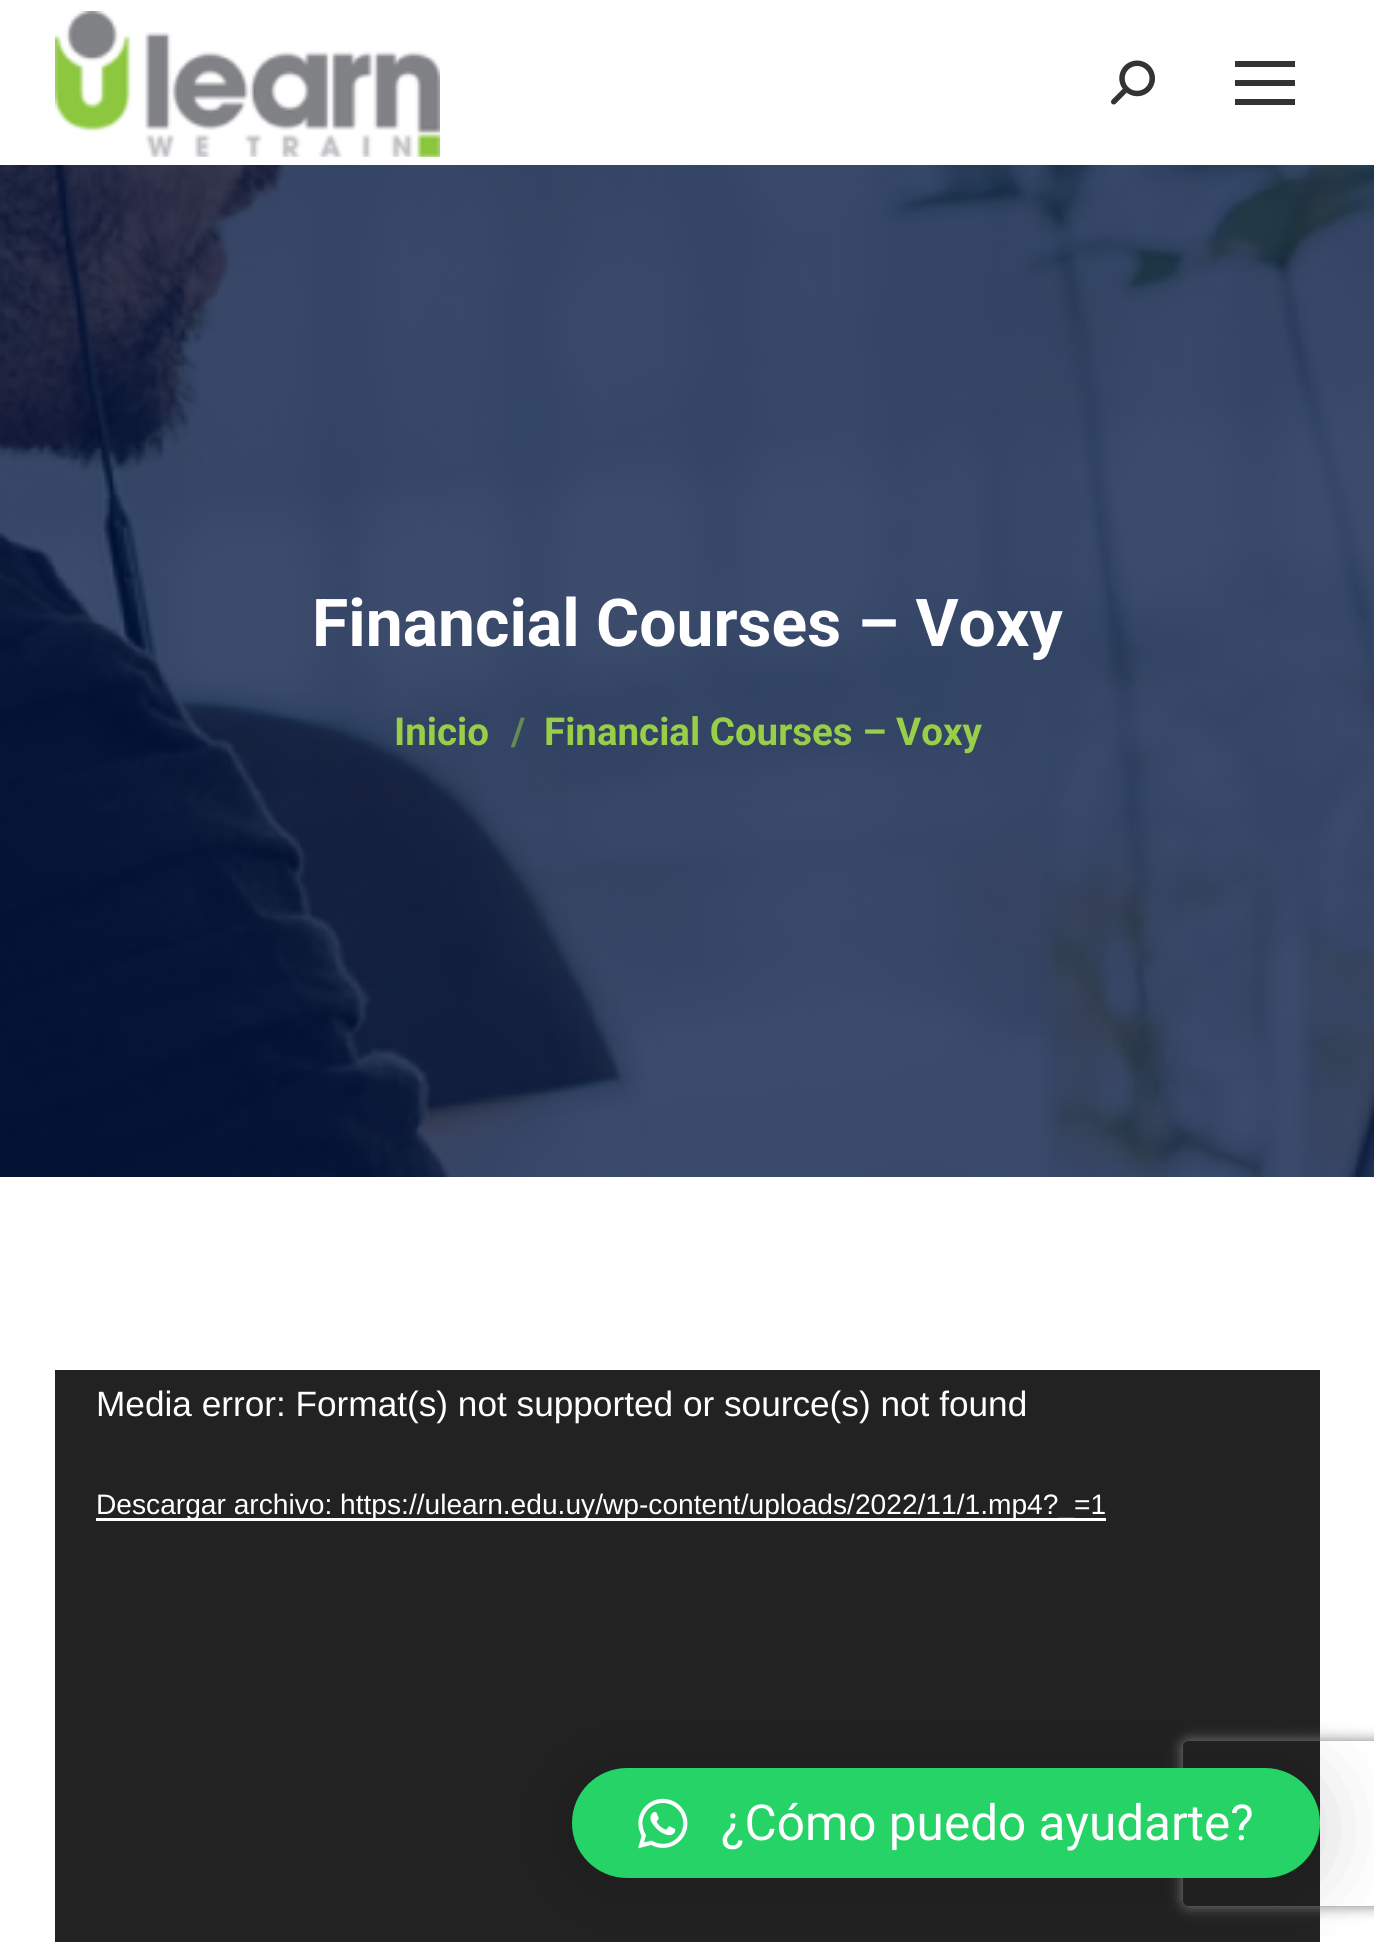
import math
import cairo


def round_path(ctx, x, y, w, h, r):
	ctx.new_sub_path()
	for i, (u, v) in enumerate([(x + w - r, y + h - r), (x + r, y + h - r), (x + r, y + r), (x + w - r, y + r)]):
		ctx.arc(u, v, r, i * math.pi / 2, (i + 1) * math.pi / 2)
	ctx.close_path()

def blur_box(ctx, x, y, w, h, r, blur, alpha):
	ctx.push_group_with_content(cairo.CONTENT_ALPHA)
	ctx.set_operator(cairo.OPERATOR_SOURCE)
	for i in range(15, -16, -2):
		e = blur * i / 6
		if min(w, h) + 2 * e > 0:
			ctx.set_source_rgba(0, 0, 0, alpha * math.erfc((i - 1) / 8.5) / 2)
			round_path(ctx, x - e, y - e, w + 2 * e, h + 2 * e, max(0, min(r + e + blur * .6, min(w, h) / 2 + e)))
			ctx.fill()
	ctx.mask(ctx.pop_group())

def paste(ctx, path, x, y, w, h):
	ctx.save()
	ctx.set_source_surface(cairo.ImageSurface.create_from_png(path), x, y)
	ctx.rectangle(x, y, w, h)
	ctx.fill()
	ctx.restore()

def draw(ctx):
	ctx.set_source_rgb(1, 1, 1)
	ctx.paint()
	paste(ctx, 'media/1.png', 55, 11, 385, 146)
	paste(ctx, 'media/2.png', 1111, 60, 44, 45)
	ctx.set_source_rgb(0.2, 0.2, 0.2)
	ctx.rectangle(1235, 61, 60, 6)
	ctx.rectangle(1235, 80, 60, 6)
	ctx.rectangle(1235, 99, 60, 6)
	ctx.fill()
	paste(ctx, 'media/3.png', 0, 165, 1374, 1012)
	ctx.select_font_face('Roboto', cairo.FONT_SLANT_NORMAL, cairo.FONT_WEIGHT_BOLD)
	ctx.set_font_size(66)
	ctx.set_source_rgb(1, 1, 1)
	ctx.move_to(312, 646)
	ctx.show_text('Financial Courses – Voxy')
	ctx.set_font_size(38.5)
	ctx.set_source_rgb(0.596, 0.808, 0.282)
	ctx.move_to(394, 745)
	ctx.show_text('Inicio')
	ctx.set_source_rgb(0.4, 0.537, 0.337)
	ctx.move_to(511, 745)
	ctx.show_text('/')
	ctx.set_source_rgb(0.596, 0.808, 0.282)
	ctx.move_to(544, 745)
	ctx.show_text('Financial Courses – Voxy')
	ctx.set_source_rgb(0.133, 0.133, 0.133)
	ctx.rectangle(55, 1370, 1265, 572)
	ctx.fill()
	ctx.select_font_face('Liberation Sans')
	ctx.set_font_size(35.2)
	ctx.set_source_rgb(1, 1, 1)
	ctx.move_to(96, 1416)
	ctx.show_text('Media error: Format(s) not supported or source(s) not found')
	ctx.rectangle(96, 1518, 1010, 3)
	ctx.fill()
	ctx.set_font_size(28.15)
	ctx.move_to(96, 1514)
	ctx.show_text('Descargar archivo: https://ulearn.edu.uy/wp-content/uploads/2022/11/1.mp4?_=1')
	ctx.set_source_rgb(0, 0, 0)
	blur_box(ctx, 572, 1774, 748, 110, 55, 44, 0.16)
	ctx.save()
	ctx.set_fill_rule(cairo.FILL_RULE_EVEN_ODD)
	ctx.new_path()
	ctx.move_to(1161, 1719)
	ctx.line_to(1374, 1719)
	ctx.line_to(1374, 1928)
	ctx.line_to(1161, 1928)
	ctx.close_path()
	ctx.move_to(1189, 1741)
	ctx.line_to(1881, 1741)
	ctx.curve_to(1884.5, 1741, 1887, 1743.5, 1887, 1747)
	ctx.line_to(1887, 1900)
	ctx.curve_to(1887, 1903.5, 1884.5, 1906, 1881, 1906)
	ctx.line_to(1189, 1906)
	ctx.curve_to(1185.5, 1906, 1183, 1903.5, 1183, 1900)
	ctx.line_to(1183, 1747)
	ctx.curve_to(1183, 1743.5, 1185.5, 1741, 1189, 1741)
	ctx.close_path()
	ctx.clip()
	ctx.set_source_rgb(0.502, 0.502, 0.502)
	blur_box(ctx, 1183, 1741, 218, 165, 6, 7, 1)
	ctx.restore()
	ctx.set_source_rgb(0.145, 0.827, 0.4)
	round_path(ctx, 572, 1768, 748, 110, 55)
	ctx.fill()
	paste(ctx, 'media/4.png', 638, 1798, 50, 51)
	ctx.select_font_face('Roboto')
	ctx.set_font_size(49.5)
	ctx.set_source_rgb(1, 1, 1)
	ctx.move_to(721, 1840)
	ctx.show_text('¿Cómo puedo ayudarte?')


surface = cairo.ImageSurface(cairo.FORMAT_RGB24, 1374, 1942)
ctx = cairo.Context(surface)
options = cairo.FontOptions()
options.set_hint_metrics(cairo.HINT_METRICS_OFF)
options.set_hint_style(cairo.HINT_STYLE_NONE)
ctx.set_font_options(options)
ctx.set_miter_limit(4)
draw(ctx)
surface.write_to_png('image.png')
